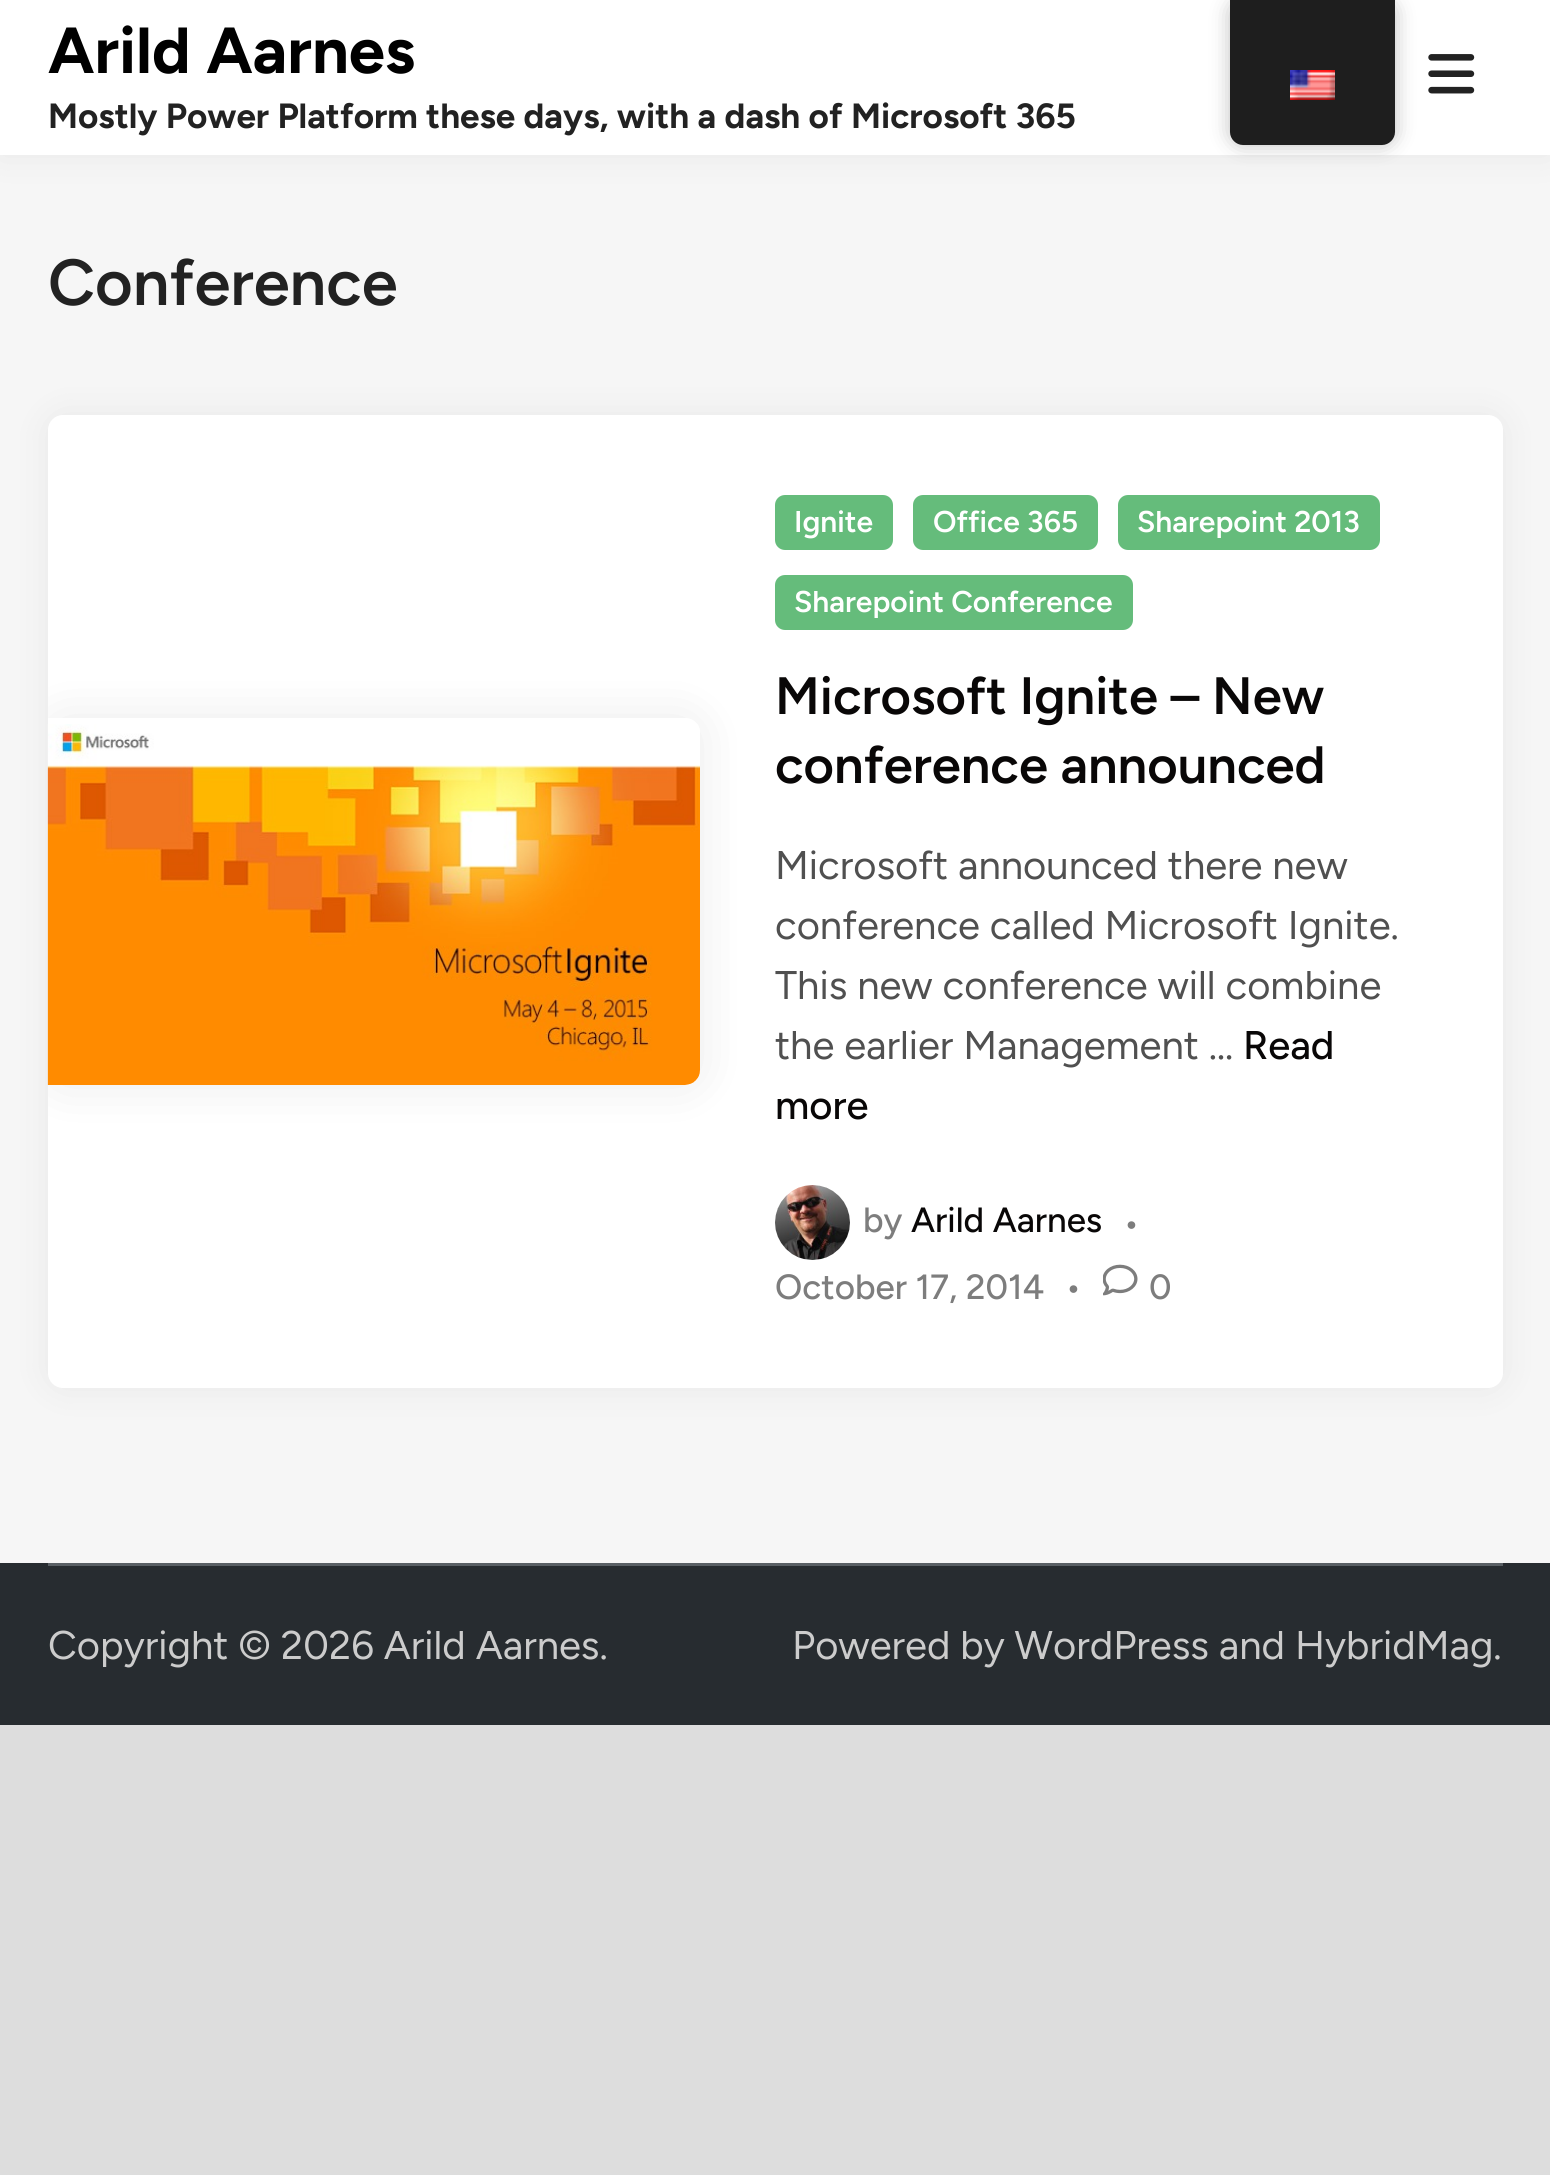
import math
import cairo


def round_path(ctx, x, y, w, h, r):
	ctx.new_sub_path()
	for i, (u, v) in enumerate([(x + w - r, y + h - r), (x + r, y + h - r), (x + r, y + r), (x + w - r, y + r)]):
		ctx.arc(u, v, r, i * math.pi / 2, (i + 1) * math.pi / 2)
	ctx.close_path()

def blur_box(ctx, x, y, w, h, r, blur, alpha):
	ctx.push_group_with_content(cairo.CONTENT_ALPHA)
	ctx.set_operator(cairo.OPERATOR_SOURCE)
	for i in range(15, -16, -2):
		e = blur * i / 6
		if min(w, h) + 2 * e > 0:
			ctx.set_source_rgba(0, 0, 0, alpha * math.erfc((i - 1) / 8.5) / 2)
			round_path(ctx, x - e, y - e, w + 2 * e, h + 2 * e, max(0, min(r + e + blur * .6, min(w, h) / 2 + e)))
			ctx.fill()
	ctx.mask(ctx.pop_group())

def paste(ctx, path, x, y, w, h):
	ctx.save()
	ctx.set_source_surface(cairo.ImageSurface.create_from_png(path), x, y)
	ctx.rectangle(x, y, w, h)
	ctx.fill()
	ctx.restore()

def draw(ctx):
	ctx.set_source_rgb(0.867, 0.867, 0.867)
	ctx.paint()
	ctx.set_source_rgb(0.961, 0.961, 0.961)
	ctx.rectangle(0, 155, 1550, 1408)
	ctx.fill()
	ctx.set_source_rgb(0, 0, 0)
	blur_box(ctx, 0, 0, 1550, 155, 0, 19, 0.06)
	ctx.set_source_rgb(1, 1, 1)
	ctx.rectangle(0, 0, 1550, 155)
	ctx.fill()
	ctx.set_source_rgb(0, 0, 0)
	blur_box(ctx, 1230, 0, 165, 145, 13, 10, 0.25)
	ctx.set_source_rgb(0.118, 0.118, 0.118)
	ctx.new_path()
	ctx.move_to(1230, 0)
	ctx.line_to(1395, 0)
	ctx.line_to(1395, 132)
	ctx.curve_to(1395, 139, 1389, 145, 1382, 145)
	ctx.line_to(1243, 145)
	ctx.curve_to(1236, 145, 1230, 139, 1230, 132)
	ctx.close_path()
	ctx.fill()
	paste(ctx, 'media/1.png', 1290, 70, 45, 30)
	ctx.select_font_face('Figtree', cairo.FONT_SLANT_NORMAL, cairo.FONT_WEIGHT_BOLD)
	ctx.set_font_size(65)
	ctx.set_source_rgb(0, 0, 0)
	ctx.move_to(48, 73)
	ctx.show_text('Arild Aarnes')
	ctx.set_font_size(35)
	ctx.set_source_rgb(0.133, 0.133, 0.133)
	ctx.move_to(48, 128)
	ctx.show_text('Mostly Power Platform these days, with a dash of Microsoft 365')
	paste(ctx, 'media/2.png', 1428, 54, 47, 40)
	ctx.select_font_face('Figtree SemiBold')
	ctx.set_font_size(65)
	ctx.move_to(48, 305)
	ctx.show_text('Conference')
	ctx.set_source_rgb(0, 0, 0)
	blur_box(ctx, 48, 415, 1455, 973, 15, 19, 0.06)
	ctx.set_source_rgb(1, 1, 1)
	round_path(ctx, 48, 415, 1455, 973, 15)
	ctx.fill()
	ctx.save()
	round_path(ctx, 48, 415, 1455, 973, 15)
	ctx.clip()
	ctx.set_fill_rule(cairo.FILL_RULE_EVEN_ODD)
	ctx.new_path()
	ctx.move_to(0, 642)
	ctx.line_to(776, 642)
	ctx.line_to(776, 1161)
	ctx.line_to(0, 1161)
	ctx.close_path()
	ctx.move_to(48, 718)
	ctx.line_to(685, 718)
	ctx.curve_to(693.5, 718, 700, 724.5, 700, 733)
	ctx.line_to(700, 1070)
	ctx.curve_to(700, 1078.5, 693.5, 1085, 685, 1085)
	ctx.line_to(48, 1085)
	ctx.close_path()
	ctx.clip()
	ctx.set_source_rgb(0, 0, 0)
	blur_box(ctx, 48, 718, 652, 367, 15, 25, 0.08)
	ctx.restore()
	paste(ctx, 'media/3.png', 47, 724, 653, 361)
	ctx.set_source_rgb(0.396, 0.737, 0.482)
	round_path(ctx, 775, 495, 118, 55, 10)
	ctx.fill()
	ctx.set_font_size(30)
	ctx.set_source_rgb(1, 1, 1)
	ctx.move_to(794, 532)
	ctx.show_text('Ignite')
	ctx.set_source_rgb(0.396, 0.737, 0.482)
	round_path(ctx, 913, 495, 185, 55, 10)
	ctx.fill()
	ctx.set_source_rgb(1, 1, 1)
	ctx.move_to(933, 532)
	ctx.show_text('Office 365')
	ctx.set_source_rgb(0.396, 0.737, 0.482)
	round_path(ctx, 1118, 495, 262, 55, 10)
	ctx.fill()
	ctx.set_source_rgb(1, 1, 1)
	ctx.move_to(1137, 532)
	ctx.show_text('Sharepoint 2013')
	ctx.set_source_rgb(0.396, 0.737, 0.482)
	round_path(ctx, 775, 575, 358, 55, 10)
	ctx.fill()
	ctx.set_source_rgb(1, 1, 1)
	ctx.move_to(794, 612)
	ctx.show_text('Sharepoint Conference')
	ctx.set_font_size(52.5)
	ctx.set_source_rgb(0.039, 0.031, 0.031)
	ctx.move_to(775, 714)
	ctx.show_text('Microsoft Ignite – New')
	ctx.move_to(775, 783)
	ctx.show_text('conference announced')
	ctx.select_font_face('Figtree')
	ctx.set_font_size(40)
	ctx.set_source_rgb(0.314, 0.314, 0.314)
	for x, y, s in [
		(775, 879, 'Microsoft announced there new'),
		(775, 939, 'conference called Microsoft Ignite.'),
		(775, 999, 'This new conference will combine'),
		(775, 1059, 'the earlier Management …'),
	]:
		ctx.move_to(x, y)
		ctx.show_text(s)
	ctx.select_font_face('Figtree Medium')
	ctx.set_source_rgb(0.039, 0.031, 0.031)
	ctx.move_to(1243, 1059)
	ctx.show_text('Read')
	ctx.move_to(775, 1119)
	ctx.show_text('more')
	paste(ctx, 'media/4.png', 775, 1185, 75, 75)
	ctx.set_font_size(35)
	ctx.set_source_rgb(0.49, 0.49, 0.49)
	ctx.move_to(863, 1232)
	ctx.show_text('by')
	ctx.set_source_rgb(0.039, 0.031, 0.031)
	ctx.move_to(911, 1232)
	ctx.show_text('Arild Aarnes')
	ctx.set_source_rgb(0.49, 0.49, 0.49)
	for x, y, s in [
		(1123, 1235, '•'),
		(775, 1299, 'October 17, 2014'),
		(1065, 1299, '•'),
	]:
		ctx.move_to(x, y)
		ctx.show_text(s)
	paste(ctx, 'media/5.png', 1103, 1264, 35, 32)
	ctx.move_to(1149, 1299)
	ctx.show_text('0')
	ctx.set_source_rgb(0.153, 0.173, 0.188)
	ctx.rectangle(0, 1563, 1550, 162)
	ctx.fill()
	ctx.set_source_rgb(0.349, 0.373, 0.392)
	ctx.rectangle(48, 1563, 1455, 3)
	ctx.fill()
	ctx.select_font_face('Figtree')
	ctx.set_font_size(40)
	ctx.set_source_rgb(0.8, 0.8, 0.8)
	ctx.move_to(48, 1659)
	ctx.show_text('Copyright © 2026 Arild Aarnes.')
	ctx.move_to(792, 1659)
	ctx.show_text('Powered by WordPress and HybridMag.')


surface = cairo.ImageSurface(cairo.FORMAT_RGB24, 1550, 2175)
ctx = cairo.Context(surface)
options = cairo.FontOptions()
options.set_hint_metrics(cairo.HINT_METRICS_OFF)
options.set_hint_style(cairo.HINT_STYLE_NONE)
ctx.set_font_options(options)
ctx.set_miter_limit(4)
draw(ctx)
surface.write_to_png('image.png')
